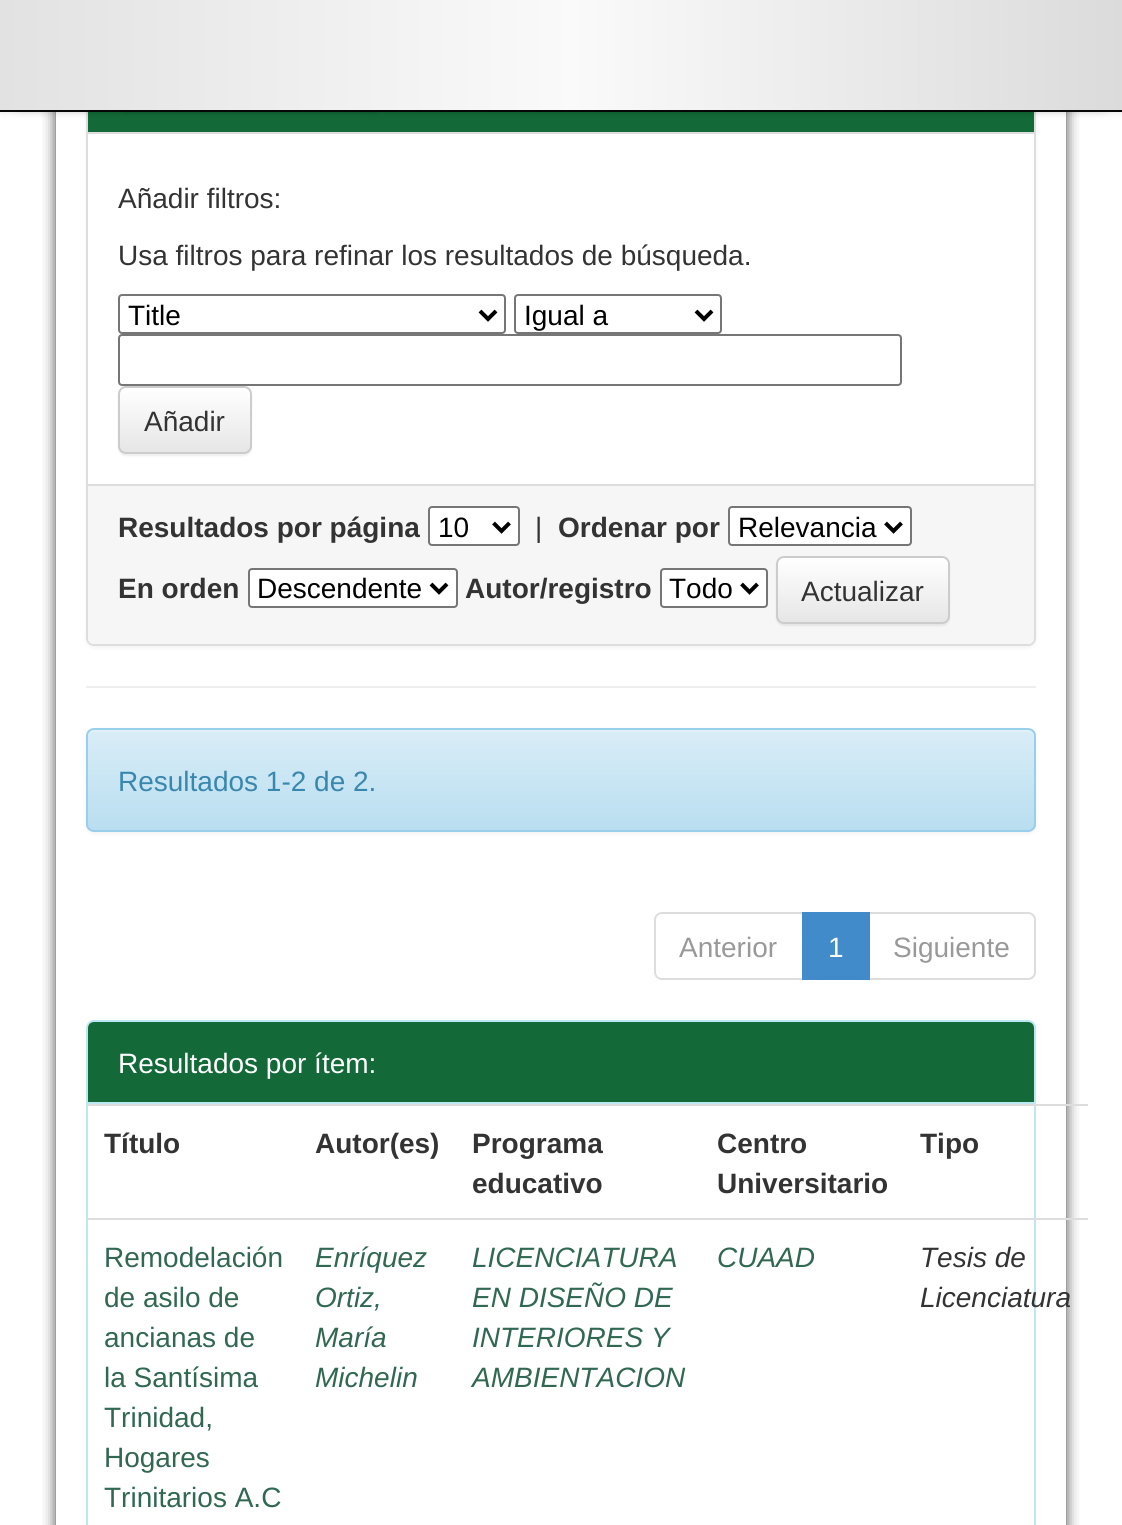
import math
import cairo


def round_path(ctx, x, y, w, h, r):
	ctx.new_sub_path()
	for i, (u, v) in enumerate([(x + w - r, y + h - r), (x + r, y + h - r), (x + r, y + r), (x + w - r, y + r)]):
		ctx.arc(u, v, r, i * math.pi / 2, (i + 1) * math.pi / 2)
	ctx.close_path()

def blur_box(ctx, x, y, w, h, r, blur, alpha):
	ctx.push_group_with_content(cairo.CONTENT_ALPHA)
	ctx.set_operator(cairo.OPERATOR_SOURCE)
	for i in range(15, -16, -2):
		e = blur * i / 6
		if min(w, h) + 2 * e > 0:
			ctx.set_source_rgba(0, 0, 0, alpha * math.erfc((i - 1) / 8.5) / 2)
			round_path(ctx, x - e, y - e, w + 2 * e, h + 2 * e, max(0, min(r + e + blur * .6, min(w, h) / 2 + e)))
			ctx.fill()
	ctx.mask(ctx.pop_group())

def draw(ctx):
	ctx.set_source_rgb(1, 1, 1)
	ctx.paint()
	ctx.save()
	ctx.rectangle(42, 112, 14, 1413)
	ctx.clip()
	ctx.set_source_rgb(0, 0, 0)
	blur_box(ctx, 56, -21, 990, 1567, 0, 7, 0.75)
	ctx.restore()
	ctx.save()
	ctx.rectangle(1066, 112, 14, 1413)
	ctx.clip()
	ctx.set_source_rgb(0, 0, 0)
	blur_box(ctx, 76, -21, 990, 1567, 0, 7, 0.75)
	ctx.restore()
	ctx.set_source_rgb(0, 0, 0)
	blur_box(ctx, 86, -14, 950, 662, 8, 2, 0.05)
	ctx.set_source_rgb(1, 1, 1)
	round_path(ctx, 87, -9, 948, 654, 7)
	ctx.fill_preserve()
	ctx.set_source_rgb(0.867, 0.867, 0.867)
	ctx.stroke()
	ctx.set_source_rgb(0.078, 0.416, 0.22)
	ctx.rectangle(88, 112, 946, 20)
	ctx.fill()
	ctx.set_source_rgb(0, 0, 0)
	blur_box(ctx, 0, 10, 1102, 92, 0, 7, 0.75)
	blur_box(ctx, 20, 10, 1102, 92, 0, 7, 0.75)
	blur_box(ctx, 118, 46, 264, 68, 8, 1, 0.07)
	gradient = cairo.LinearGradient(0, 55, 1122, 55)
	gradient.add_color_stop_rgba(0, 0.886, 0.886, 0.886, 1)
	gradient.add_color_stop_rgba(0.51, 0.98, 0.98, 0.98, 1)
	gradient.add_color_stop_rgba(1, 0.859, 0.859, 0.859, 1)
	ctx.set_source(gradient)
	ctx.rectangle(0, 0, 1122, 110)
	ctx.fill()
	ctx.set_source_rgb(0.031, 0.031, 0.031)
	ctx.rectangle(0, 110, 1122, 2)
	ctx.fill()
	ctx.set_source_rgb(0.867, 0.867, 0.867)
	ctx.rectangle(88, 132, 946, 2)
	ctx.fill()
	ctx.select_font_face('Liberation Sans')
	ctx.set_font_size(28)
	ctx.set_source_rgb(0.2, 0.2, 0.2)
	ctx.move_to(118, 208)
	ctx.show_text('Añadir filtros:')
	ctx.move_to(118, 265)
	ctx.show_text('Usa filtros para refinar los resultados de búsqueda.')
	round_path(ctx, 119, 295, 386, 38, 3)
	ctx.set_source_rgb(0.463, 0.463, 0.463)
	ctx.stroke()
	ctx.new_path()
	ctx.move_to(480, 311)
	ctx.line_to(488, 319)
	ctx.line_to(496, 311)
	ctx.set_source_rgb(0, 0, 0)
	ctx.set_line_width(4)
	ctx.stroke()
	ctx.move_to(128, 325)
	ctx.show_text('Title')
	round_path(ctx, 515, 295, 206, 38, 3)
	ctx.set_source_rgb(0.463, 0.463, 0.463)
	ctx.set_line_width(2)
	ctx.stroke()
	ctx.new_path()
	ctx.move_to(696, 311)
	ctx.line_to(704, 319)
	ctx.line_to(712, 311)
	ctx.set_source_rgb(0, 0, 0)
	ctx.set_line_width(4)
	ctx.stroke()
	ctx.move_to(524, 325)
	ctx.show_text('Igual a')
	round_path(ctx, 119, 335, 782, 50, 3)
	ctx.set_source_rgb(0.463, 0.463, 0.463)
	ctx.set_line_width(2)
	ctx.stroke()
	ctx.set_source_rgb(0, 0, 0)
	blur_box(ctx, 118, 388, 134, 68, 8, 1, 0.07)
	ctx.save()
	round_path(ctx, 118, 386, 134, 68, 8)
	ctx.clip()
	gradient = cairo.LinearGradient(185, 388, 185, 452)
	gradient.add_color_stop_rgba(0, 1, 1, 1, 1)
	gradient.add_color_stop_rgba(1, 0.902, 0.902, 0.902, 1)
	ctx.set_source(gradient)
	ctx.rectangle(118, 388, 134, 64)
	ctx.fill()
	ctx.restore()
	round_path(ctx, 119, 387, 132, 66, 7)
	ctx.set_source_rgb(0.8, 0.8, 0.8)
	ctx.stroke()
	ctx.set_source_rgb(0.2, 0.2, 0.2)
	ctx.move_to(144, 431)
	ctx.show_text('Añadir')
	ctx.set_source_rgb(0.961, 0.961, 0.961)
	ctx.new_path()
	ctx.move_to(88, 484)
	ctx.line_to(1034, 484)
	ctx.line_to(1034, 638)
	ctx.curve_to(1034, 641.5, 1031.5, 644, 1028, 644)
	ctx.line_to(94, 644)
	ctx.curve_to(90.5, 644, 88, 641.5, 88, 638)
	ctx.close_path()
	ctx.fill()
	ctx.set_source_rgb(0.867, 0.867, 0.867)
	ctx.rectangle(88, 484, 946, 2)
	ctx.fill()
	ctx.select_font_face('Liberation Sans', cairo.FONT_SLANT_NORMAL, cairo.FONT_WEIGHT_BOLD)
	ctx.set_source_rgb(0.2, 0.2, 0.2)
	ctx.move_to(118, 537)
	ctx.show_text('Resultados por página')
	ctx.set_source_rgb(1, 1, 1)
	round_path(ctx, 429, 507, 90, 38, 3)
	ctx.fill_preserve()
	ctx.set_source_rgb(0.463, 0.463, 0.463)
	ctx.stroke()
	ctx.new_path()
	ctx.move_to(493.5, 523)
	ctx.line_to(501.5, 531)
	ctx.line_to(509.5, 523)
	ctx.set_source_rgb(0, 0, 0)
	ctx.set_line_width(4)
	ctx.stroke()
	ctx.select_font_face('Liberation Sans')
	ctx.move_to(438, 537)
	ctx.show_text('10')
	ctx.set_source_rgb(0.2, 0.2, 0.2)
	ctx.move_to(535, 537)
	ctx.show_text('|')
	ctx.select_font_face('Liberation Sans', cairo.FONT_SLANT_NORMAL, cairo.FONT_WEIGHT_BOLD)
	ctx.move_to(558, 537)
	ctx.show_text('Ordenar por')
	ctx.set_source_rgb(1, 1, 1)
	round_path(ctx, 729, 507, 182, 38, 3)
	ctx.fill_preserve()
	ctx.set_source_rgb(0.463, 0.463, 0.463)
	ctx.set_line_width(2)
	ctx.stroke()
	ctx.new_path()
	ctx.move_to(885.5, 523)
	ctx.line_to(893.5, 531)
	ctx.line_to(901.5, 523)
	ctx.set_source_rgb(0, 0, 0)
	ctx.set_line_width(4)
	ctx.stroke()
	ctx.select_font_face('Liberation Sans')
	ctx.move_to(738, 537)
	ctx.show_text('Relevancia')
	ctx.select_font_face('Liberation Sans', cairo.FONT_SLANT_NORMAL, cairo.FONT_WEIGHT_BOLD)
	ctx.set_source_rgb(0.2, 0.2, 0.2)
	ctx.move_to(118, 598)
	ctx.show_text('En orden')
	ctx.set_source_rgb(1, 1, 1)
	round_path(ctx, 249, 569, 208, 38, 3)
	ctx.fill_preserve()
	ctx.set_source_rgb(0.463, 0.463, 0.463)
	ctx.set_line_width(2)
	ctx.stroke()
	ctx.new_path()
	ctx.move_to(431, 584)
	ctx.line_to(439, 592)
	ctx.line_to(447, 584)
	ctx.set_source_rgb(0, 0, 0)
	ctx.set_line_width(4)
	ctx.stroke()
	ctx.select_font_face('Liberation Sans')
	ctx.move_to(257, 598)
	ctx.show_text('Descendente')
	ctx.select_font_face('Liberation Sans', cairo.FONT_SLANT_NORMAL, cairo.FONT_WEIGHT_BOLD)
	ctx.set_source_rgb(0.2, 0.2, 0.2)
	ctx.move_to(465, 598)
	ctx.show_text('Autor/registro')
	ctx.set_source_rgb(1, 1, 1)
	round_path(ctx, 661, 569, 106, 38, 3)
	ctx.fill_preserve()
	ctx.set_source_rgb(0.463, 0.463, 0.463)
	ctx.set_line_width(2)
	ctx.stroke()
	ctx.new_path()
	ctx.move_to(741.5, 584)
	ctx.line_to(749.5, 592)
	ctx.line_to(757.5, 584)
	ctx.set_source_rgb(0, 0, 0)
	ctx.set_line_width(4)
	ctx.stroke()
	ctx.select_font_face('Liberation Sans')
	ctx.move_to(669, 598)
	ctx.show_text('Todo')
	ctx.set_source_rgb(0, 0, 0)
	blur_box(ctx, 776, 558, 174, 68, 8, 1, 0.07)
	ctx.save()
	round_path(ctx, 776, 556, 174, 68, 8)
	ctx.clip()
	gradient = cairo.LinearGradient(863, 558, 863, 622)
	gradient.add_color_stop_rgba(0, 1, 1, 1, 1)
	gradient.add_color_stop_rgba(1, 0.902, 0.902, 0.902, 1)
	ctx.set_source(gradient)
	ctx.rectangle(776, 558, 174, 64)
	ctx.fill()
	ctx.restore()
	round_path(ctx, 777, 557, 172, 66, 7)
	ctx.set_source_rgb(0.8, 0.8, 0.8)
	ctx.set_line_width(2)
	ctx.stroke()
	ctx.set_source_rgb(0.2, 0.2, 0.2)
	ctx.move_to(801, 601)
	ctx.show_text('Actualizar')
	ctx.set_source_rgb(0.933, 0.933, 0.933)
	ctx.rectangle(86, 686, 950, 2)
	ctx.fill()
	ctx.set_source_rgb(0, 0, 0)
	blur_box(ctx, 86, 730, 950, 104, 8, 2, 0.05)
	ctx.save()
	round_path(ctx, 86, 728, 950, 104, 8)
	ctx.clip()
	gradient = cairo.LinearGradient(561, 730, 561, 830)
	gradient.add_color_stop_rgba(0, 0.851, 0.929, 0.969, 1)
	gradient.add_color_stop_rgba(1, 0.725, 0.871, 0.941, 1)
	ctx.set_source(gradient)
	ctx.rectangle(86, 730, 950, 100)
	ctx.fill()
	ctx.restore()
	ctx.set_source_rgb(0.886, 0.945, 0.976)
	ctx.new_path()
	ctx.move_to(94, 732)
	ctx.line_to(1028, 732)
	ctx.curve_to(1031, 732, 1034, 735, 1034, 738)
	ctx.line_to(1034, 736)
	ctx.curve_to(1034, 733, 1031, 730, 1028, 730)
	ctx.line_to(94, 730)
	ctx.curve_to(91, 730, 88, 733, 88, 736)
	ctx.line_to(88, 738)
	ctx.curve_to(88, 735, 91, 732, 94, 732)
	ctx.close_path()
	ctx.fill()
	round_path(ctx, 87, 729, 948, 102, 7)
	ctx.set_source_rgb(0.604, 0.812, 0.918)
	ctx.stroke()
	ctx.set_source_rgb(0.227, 0.529, 0.678)
	ctx.move_to(118, 791)
	ctx.show_text('Resultados 1-2 de 2.')
	ctx.new_path()
	ctx.move_to(662, 913)
	ctx.line_to(803, 913)
	ctx.line_to(803, 979)
	ctx.line_to(662, 979)
	ctx.curve_to(658, 979, 655, 976, 655, 972)
	ctx.line_to(655, 920)
	ctx.curve_to(655, 916, 658, 913, 662, 913)
	ctx.close_path()
	ctx.set_source_rgb(0.867, 0.867, 0.867)
	ctx.stroke()
	ctx.set_source_rgb(0.6, 0.6, 0.6)
	ctx.move_to(679, 957)
	ctx.show_text('Anterior')
	ctx.new_path()
	ctx.move_to(869, 913)
	ctx.line_to(1028, 913)
	ctx.curve_to(1032, 913, 1035, 916, 1035, 920)
	ctx.line_to(1035, 972)
	ctx.curve_to(1035, 976, 1032, 979, 1028, 979)
	ctx.line_to(869, 979)
	ctx.close_path()
	ctx.set_source_rgb(0.867, 0.867, 0.867)
	ctx.stroke()
	ctx.set_source_rgb(0.259, 0.545, 0.792)
	ctx.rectangle(802, 912, 68, 68)
	ctx.fill()
	ctx.set_source_rgb(1, 1, 1)
	ctx.move_to(828, 957)
	ctx.show_text('1')
	ctx.set_source_rgb(0.6, 0.6, 0.6)
	ctx.move_to(893, 957)
	ctx.show_text('Siguiente')
	round_path(ctx, 87, 1021, 948, 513, 7)
	ctx.set_source_rgb(0.737, 0.91, 0.945)
	ctx.stroke()
	ctx.set_source_rgb(0.078, 0.416, 0.22)
	ctx.new_path()
	ctx.move_to(94, 1022)
	ctx.line_to(1028, 1022)
	ctx.curve_to(1031.5, 1022, 1034, 1024.5, 1034, 1028)
	ctx.line_to(1034, 1104)
	ctx.line_to(88, 1104)
	ctx.line_to(88, 1028)
	ctx.curve_to(88, 1024.5, 90.5, 1022, 94, 1022)
	ctx.close_path()
	ctx.fill()
	ctx.set_source_rgb(0.737, 0.91, 0.945)
	ctx.rectangle(88, 1102, 946, 2)
	ctx.fill()
	ctx.set_source_rgb(1, 1, 1)
	ctx.move_to(118, 1073)
	ctx.show_text('Resultados por ítem:')
	ctx.select_font_face('Liberation Sans', cairo.FONT_SLANT_NORMAL, cairo.FONT_WEIGHT_BOLD)
	ctx.set_source_rgb(0.2, 0.2, 0.2)
	for x, y, s in [
		(104, 1153, 'Título'),
		(315, 1153, 'Autor(es)'),
		(472, 1153, 'Programa'),
		(472, 1193, 'educativo'),
		(717, 1153, 'Centro'),
		(717, 1193, 'Universitario'),
	]:
		ctx.move_to(x, y)
		ctx.show_text(s)
	ctx.set_source_rgb(0.867, 0.867, 0.867)
	ctx.rectangle(88, 1104, 1000, 2)
	ctx.fill()
	ctx.set_source_rgb(0.2, 0.2, 0.2)
	ctx.move_to(920, 1153)
	ctx.show_text('Tipo')
	ctx.select_font_face('Liberation Sans')
	ctx.set_source_rgb(0.192, 0.408, 0.322)
	for x, y, s in [
		(104, 1267, 'Remodelación'),
		(104, 1307, 'de asilo de'),
		(104, 1347, 'ancianas de'),
		(104, 1387, 'la Santísima'),
		(104, 1427, 'Trinidad,'),
		(104, 1467, 'Hogares'),
		(104, 1507, 'Trinitarios A.C'),
	]:
		ctx.move_to(x, y)
		ctx.show_text(s)
	ctx.select_font_face('Liberation Sans', cairo.FONT_SLANT_ITALIC)
	for x, y, s in [
		(315, 1267, 'Enríquez'),
		(315, 1307, 'Ortiz,'),
		(315, 1347, 'María'),
		(315, 1387, 'Michelin'),
		(472, 1267, 'LICENCIATURA'),
		(472, 1307, 'EN DISEÑO DE'),
		(472, 1347, 'INTERIORES Y'),
		(472, 1387, 'AMBIENTACION'),
		(717, 1267, 'CUAAD'),
	]:
		ctx.move_to(x, y)
		ctx.show_text(s)
	ctx.set_source_rgb(0.867, 0.867, 0.867)
	ctx.rectangle(88, 1218, 1000, 2)
	ctx.fill()
	ctx.set_source_rgb(0.2, 0.2, 0.2)
	ctx.move_to(920, 1267)
	ctx.show_text('Tesis de')
	ctx.move_to(920, 1307)
	ctx.show_text('Licenciatura')


surface = cairo.ImageSurface(cairo.FORMAT_RGB24, 1122, 1525)
ctx = cairo.Context(surface)
options = cairo.FontOptions()
options.set_hint_metrics(cairo.HINT_METRICS_OFF)
options.set_hint_style(cairo.HINT_STYLE_NONE)
ctx.set_font_options(options)
ctx.set_miter_limit(4)
draw(ctx)
surface.write_to_png('image.png')
